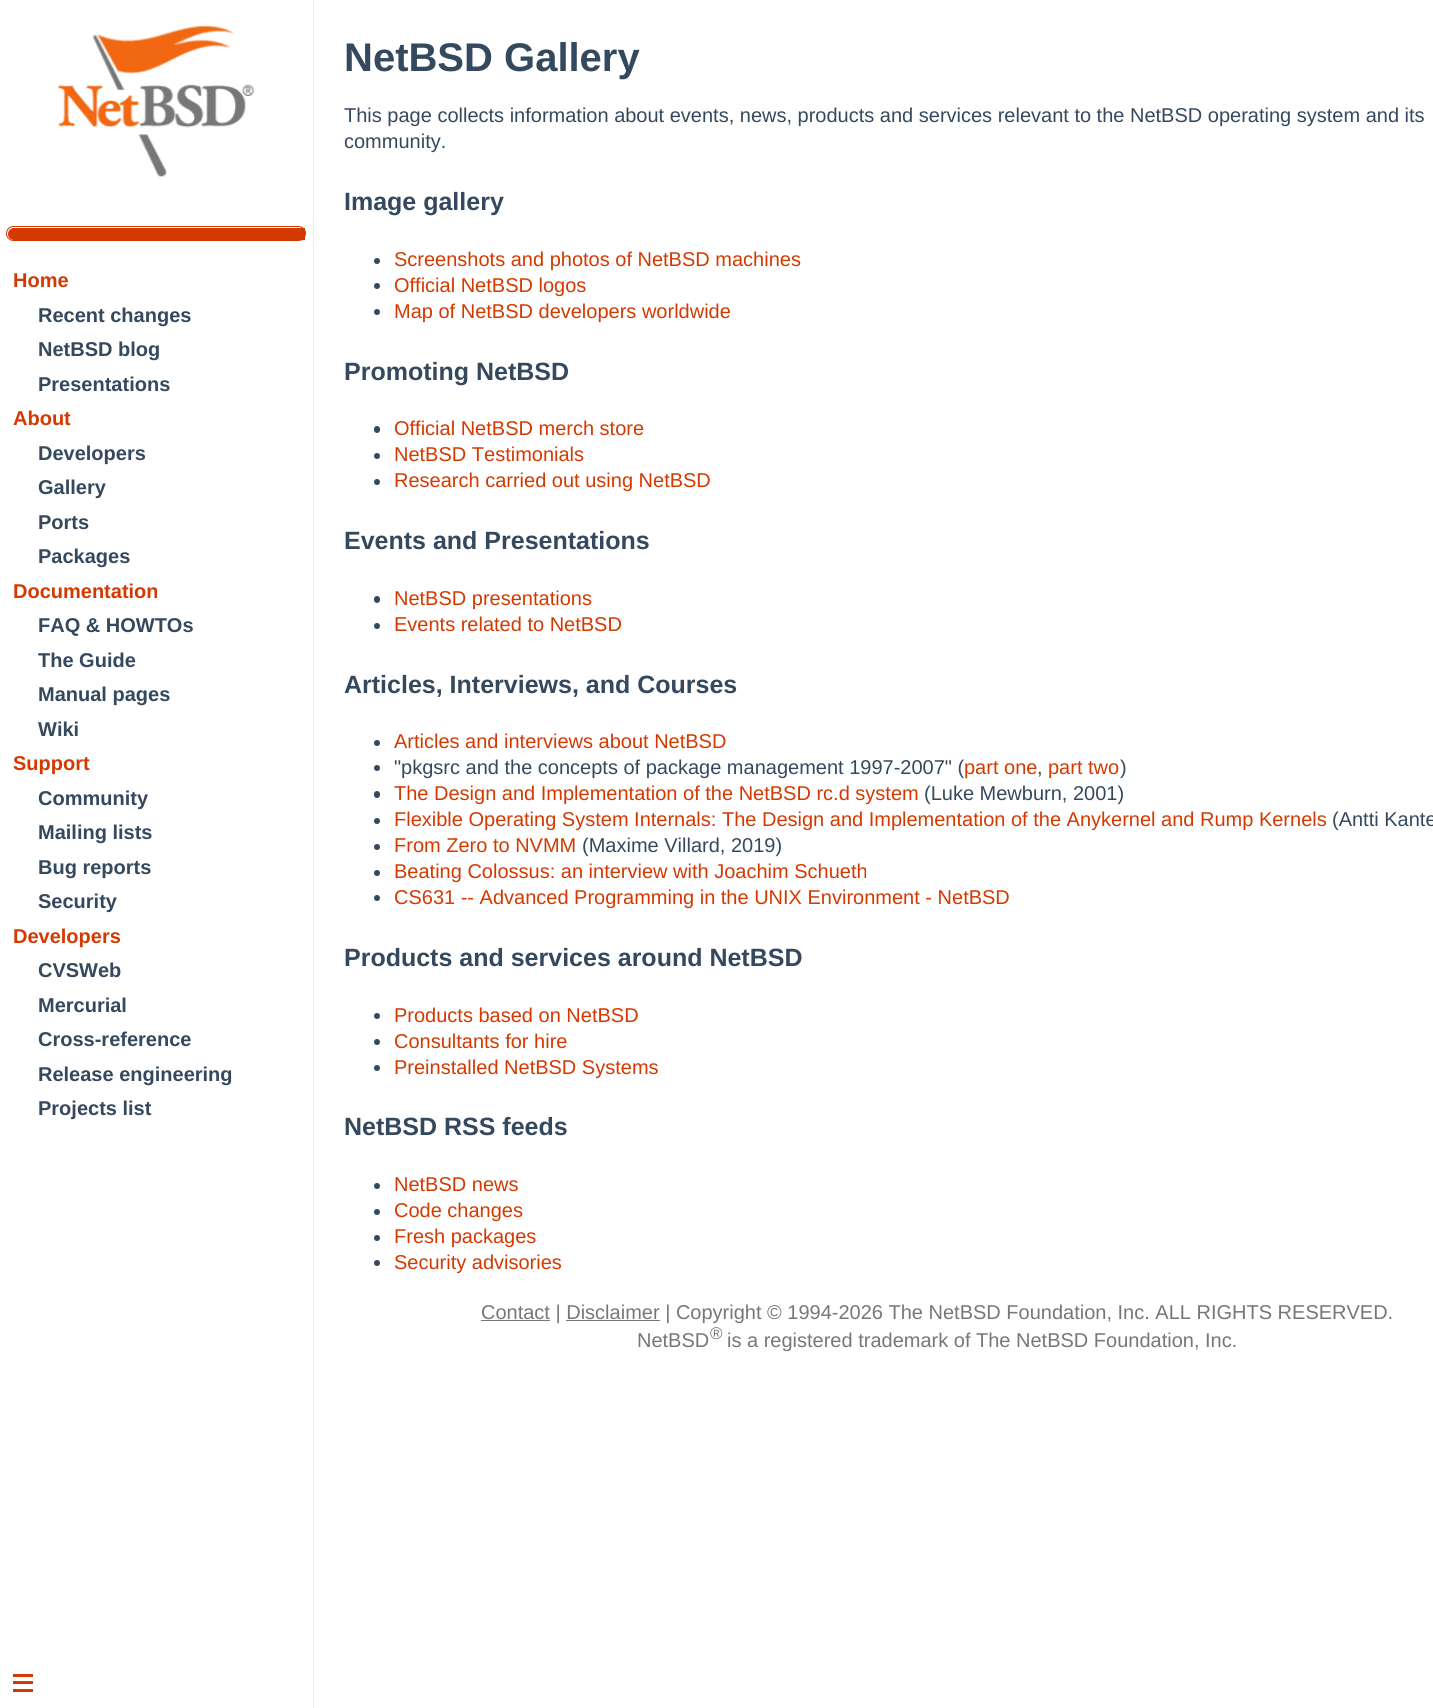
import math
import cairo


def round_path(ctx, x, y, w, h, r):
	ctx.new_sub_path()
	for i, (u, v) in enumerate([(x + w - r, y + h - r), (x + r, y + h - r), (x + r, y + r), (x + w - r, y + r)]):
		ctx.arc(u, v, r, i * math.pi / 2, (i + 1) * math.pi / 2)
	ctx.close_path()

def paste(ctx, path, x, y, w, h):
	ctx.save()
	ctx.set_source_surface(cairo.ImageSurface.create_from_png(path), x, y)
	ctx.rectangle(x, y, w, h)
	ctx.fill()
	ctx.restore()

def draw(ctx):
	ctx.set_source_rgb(1, 1, 1)
	ctx.paint()
	ctx.set_source_rgb(0.929, 0.929, 0.929)
	ctx.rectangle(313, 0, 1, 1708)
	ctx.fill()
	paste(ctx, 'media/1.png', 58, 25, 197, 152)
	round_path(ctx, 6.5, 226.5, 299, 14, 7)
	ctx.set_source_rgb(0.831, 0.224, 0)
	ctx.set_line_width(1)
	ctx.stroke()
	ctx.new_path()
	ctx.move_to(14, 228.5)
	ctx.line_to(304.5, 228.5)
	ctx.line_to(304.5, 239.5)
	ctx.line_to(14, 239.5)
	ctx.curve_to(11, 239.5, 8.5, 237, 8.5, 234)
	ctx.curve_to(8.5, 231, 11, 228.5, 14, 228.5)
	ctx.close_path()
	ctx.fill_preserve()
	ctx.stroke()
	ctx.select_font_face('Liberation Sans', cairo.FONT_SLANT_NORMAL, cairo.FONT_WEIGHT_BOLD)
	ctx.set_font_size(20)
	ctx.move_to(13, 287)
	ctx.show_text('Home')
	ctx.set_source_rgb(0.204, 0.286, 0.369)
	for x, y, s in [
		(38, 322, 'Recent changes'),
		(38, 356, 'NetBSD blog'),
		(38, 391, 'Presentations'),
	]:
		ctx.move_to(x, y)
		ctx.show_text(s)
	ctx.set_source_rgb(0.831, 0.224, 0)
	ctx.move_to(13, 425)
	ctx.show_text('About')
	ctx.set_source_rgb(0.204, 0.286, 0.369)
	for x, y, s in [
		(38, 460, 'Developers'),
		(38, 494, 'Gallery'),
		(38, 529, 'Ports'),
		(38, 563, 'Packages'),
	]:
		ctx.move_to(x, y)
		ctx.show_text(s)
	ctx.set_source_rgb(0.831, 0.224, 0)
	ctx.move_to(13, 598)
	ctx.show_text('Documentation')
	ctx.set_source_rgb(0.204, 0.286, 0.369)
	for x, y, s in [
		(38, 632, 'FAQ & HOWTOs'),
		(38, 667, 'The Guide'),
		(38, 701, 'Manual pages'),
		(38, 736, 'Wiki'),
	]:
		ctx.move_to(x, y)
		ctx.show_text(s)
	ctx.set_source_rgb(0.831, 0.224, 0)
	ctx.move_to(13, 770)
	ctx.show_text('Support')
	ctx.set_source_rgb(0.204, 0.286, 0.369)
	for x, y, s in [
		(38, 805, 'Community'),
		(38, 839, 'Mailing lists'),
		(38, 874, 'Bug reports'),
		(38, 908, 'Security'),
	]:
		ctx.move_to(x, y)
		ctx.show_text(s)
	ctx.set_source_rgb(0.831, 0.224, 0)
	ctx.move_to(13, 943)
	ctx.show_text('Developers')
	ctx.set_source_rgb(0.204, 0.286, 0.369)
	for x, y, s in [
		(38, 977, 'CVSWeb'),
		(38, 1012, 'Mercurial'),
		(38, 1046, 'Cross-reference'),
		(38, 1081, 'Release engineering'),
		(38, 1115, 'Projects list'),
	]:
		ctx.move_to(x, y)
		ctx.show_text(s)
	ctx.set_font_size(40)
	ctx.move_to(344, 71)
	ctx.show_text('NetBSD Gallery')
	ctx.select_font_face('Liberation Sans')
	ctx.set_font_size(20)
	ctx.move_to(344, 122)
	ctx.show_text('This page collects information about events, news, products and services relevant to the NetBSD operating system and its')
	ctx.move_to(344, 148)
	ctx.show_text('community.')
	ctx.select_font_face('Liberation Sans', cairo.FONT_SLANT_NORMAL, cairo.FONT_WEIGHT_BOLD)
	ctx.set_font_size(25)
	ctx.move_to(344, 210)
	ctx.show_text('Image gallery')
	ctx.new_path()
	ctx.arc(377, 261, 3, 0, 2 * math.pi)
	ctx.fill()
	ctx.select_font_face('Liberation Sans')
	ctx.set_font_size(20)
	ctx.set_source_rgb(0.831, 0.224, 0)
	ctx.move_to(394, 266)
	ctx.show_text('Screenshots and photos of NetBSD machines')
	ctx.set_source_rgb(0.204, 0.286, 0.369)
	ctx.new_path()
	ctx.arc(377, 286, 3, 0, 2 * math.pi)
	ctx.fill()
	ctx.set_source_rgb(0.831, 0.224, 0)
	ctx.move_to(394, 292)
	ctx.show_text('Official NetBSD logos')
	ctx.set_source_rgb(0.204, 0.286, 0.369)
	ctx.new_path()
	ctx.arc(377, 312, 3, 0, 2 * math.pi)
	ctx.fill()
	ctx.set_source_rgb(0.831, 0.224, 0)
	ctx.move_to(394, 318)
	ctx.show_text('Map of NetBSD developers worldwide')
	ctx.select_font_face('Liberation Sans', cairo.FONT_SLANT_NORMAL, cairo.FONT_WEIGHT_BOLD)
	ctx.set_font_size(25)
	ctx.set_source_rgb(0.204, 0.286, 0.369)
	ctx.move_to(344, 380)
	ctx.show_text('Promoting NetBSD')
	round_path(ctx, 374, 426, 6, 7, 3)
	ctx.fill()
	ctx.select_font_face('Liberation Sans')
	ctx.set_font_size(20)
	ctx.set_source_rgb(0.831, 0.224, 0)
	ctx.move_to(394, 435)
	ctx.show_text('Official NetBSD merch store')
	ctx.set_source_rgb(0.204, 0.286, 0.369)
	ctx.new_path()
	ctx.arc(377, 456, 3, 0, 2 * math.pi)
	ctx.fill()
	ctx.set_source_rgb(0.831, 0.224, 0)
	ctx.move_to(394, 461)
	ctx.show_text('NetBSD Testimonials')
	ctx.set_source_rgb(0.204, 0.286, 0.369)
	ctx.new_path()
	ctx.arc(377, 482, 3, 0, 2 * math.pi)
	ctx.fill()
	ctx.set_source_rgb(0.831, 0.224, 0)
	ctx.move_to(394, 487)
	ctx.show_text('Research carried out using NetBSD')
	ctx.select_font_face('Liberation Sans', cairo.FONT_SLANT_NORMAL, cairo.FONT_WEIGHT_BOLD)
	ctx.set_font_size(25)
	ctx.set_source_rgb(0.204, 0.286, 0.369)
	ctx.move_to(344, 549)
	ctx.show_text('Events and Presentations')
	round_path(ctx, 374, 596, 6, 7, 3)
	ctx.fill()
	ctx.select_font_face('Liberation Sans')
	ctx.set_font_size(20)
	ctx.set_source_rgb(0.831, 0.224, 0)
	ctx.move_to(394, 605)
	ctx.show_text('NetBSD presentations')
	ctx.set_source_rgb(0.204, 0.286, 0.369)
	ctx.new_path()
	ctx.arc(377, 626, 3, 0, 2 * math.pi)
	ctx.fill()
	ctx.set_source_rgb(0.831, 0.224, 0)
	ctx.move_to(394, 631)
	ctx.show_text('Events related to NetBSD')
	ctx.select_font_face('Liberation Sans', cairo.FONT_SLANT_NORMAL, cairo.FONT_WEIGHT_BOLD)
	ctx.set_font_size(25)
	ctx.set_source_rgb(0.204, 0.286, 0.369)
	ctx.move_to(344, 693)
	ctx.show_text('Articles, Interviews, and Courses')
	ctx.new_path()
	ctx.arc(377, 743, 3, 0, 2 * math.pi)
	ctx.fill()
	ctx.select_font_face('Liberation Sans')
	ctx.set_font_size(20)
	ctx.set_source_rgb(0.831, 0.224, 0)
	ctx.move_to(394, 748)
	ctx.show_text('Articles and interviews about NetBSD')
	ctx.set_source_rgb(0.204, 0.286, 0.369)
	ctx.new_path()
	ctx.arc(377, 768, 3, 0, 2 * math.pi)
	ctx.fill()
	ctx.move_to(394, 774)
	ctx.show_text('"pkgsrc and the concepts of package management 1997-2007" (')
	ctx.set_source_rgb(0.831, 0.224, 0)
	ctx.move_to(964, 774)
	ctx.show_text('part one')
	ctx.move_to(1048, 774)
	ctx.show_text('part two')
	ctx.set_source_rgb(0.204, 0.286, 0.369)
	ctx.move_to(1120, 774)
	ctx.show_text(')')
	ctx.move_to(1037, 774)
	ctx.show_text(',')
	round_path(ctx, 374, 791, 6, 7, 3)
	ctx.fill()
	ctx.set_source_rgb(0.831, 0.224, 0)
	ctx.move_to(394, 800)
	ctx.show_text('The Design and Implementation of the NetBSD rc.d system')
	ctx.set_source_rgb(0.204, 0.286, 0.369)
	ctx.move_to(924, 800)
	ctx.show_text('(Luke Mewburn, 2001)')
	ctx.new_path()
	ctx.arc(377, 821, 3, 0, 2 * math.pi)
	ctx.fill()
	ctx.set_source_rgb(0.831, 0.224, 0)
	ctx.move_to(394, 826)
	ctx.show_text('Flexible Operating System Internals: The Design and Implementation of the Anykernel and Rump Kernels')
	ctx.set_source_rgb(0.204, 0.286, 0.369)
	ctx.move_to(1332, 826)
	ctx.show_text('(Antti Kante')
	ctx.new_path()
	ctx.arc(377, 847, 3, 0, 2 * math.pi)
	ctx.fill()
	ctx.set_source_rgb(0.831, 0.224, 0)
	ctx.move_to(394, 852)
	ctx.show_text('From Zero to NVMM')
	ctx.set_source_rgb(0.204, 0.286, 0.369)
	ctx.move_to(582, 852)
	ctx.show_text('(Maxime Villard, 2019)')
	ctx.new_path()
	ctx.arc(377, 873, 3, 0, 2 * math.pi)
	ctx.fill()
	ctx.set_source_rgb(0.831, 0.224, 0)
	ctx.move_to(394, 878)
	ctx.show_text('Beating Colossus: an interview with Joachim Schueth')
	ctx.set_source_rgb(0.204, 0.286, 0.369)
	ctx.new_path()
	ctx.arc(377, 898, 3, 0, 2 * math.pi)
	ctx.fill()
	ctx.set_source_rgb(0.831, 0.224, 0)
	ctx.move_to(394, 904)
	ctx.show_text('CS631 -- Advanced Programming in the UNIX Environment - NetBSD')
	ctx.select_font_face('Liberation Sans', cairo.FONT_SLANT_NORMAL, cairo.FONT_WEIGHT_BOLD)
	ctx.set_font_size(25)
	ctx.set_source_rgb(0.204, 0.286, 0.369)
	ctx.move_to(344, 966)
	ctx.show_text('Products and services around NetBSD')
	ctx.new_path()
	ctx.arc(377, 1016, 3, 0, 2 * math.pi)
	ctx.fill()
	ctx.select_font_face('Liberation Sans')
	ctx.set_font_size(20)
	ctx.set_source_rgb(0.831, 0.224, 0)
	ctx.move_to(394, 1022)
	ctx.show_text('Products based on NetBSD')
	ctx.set_source_rgb(0.204, 0.286, 0.369)
	ctx.new_path()
	ctx.arc(377, 1042, 3, 0, 2 * math.pi)
	ctx.fill()
	ctx.set_source_rgb(0.831, 0.224, 0)
	ctx.move_to(394, 1048)
	ctx.show_text('Consultants for hire')
	ctx.set_source_rgb(0.204, 0.286, 0.369)
	ctx.new_path()
	ctx.arc(377, 1068, 3, 0, 2 * math.pi)
	ctx.fill()
	ctx.set_source_rgb(0.831, 0.224, 0)
	ctx.move_to(394, 1074)
	ctx.show_text('Preinstalled NetBSD Systems')
	ctx.select_font_face('Liberation Sans', cairo.FONT_SLANT_NORMAL, cairo.FONT_WEIGHT_BOLD)
	ctx.set_font_size(25)
	ctx.set_source_rgb(0.204, 0.286, 0.369)
	ctx.move_to(344, 1135)
	ctx.show_text('NetBSD RSS feeds')
	ctx.new_path()
	ctx.arc(377, 1186, 3, 0, 2 * math.pi)
	ctx.fill()
	ctx.select_font_face('Liberation Sans')
	ctx.set_font_size(20)
	ctx.set_source_rgb(0.831, 0.224, 0)
	ctx.move_to(394, 1191)
	ctx.show_text('NetBSD news')
	ctx.set_source_rgb(0.204, 0.286, 0.369)
	ctx.new_path()
	ctx.arc(377, 1212, 3, 0, 2 * math.pi)
	ctx.fill()
	ctx.set_source_rgb(0.831, 0.224, 0)
	ctx.move_to(394, 1217)
	ctx.show_text('Code changes')
	ctx.set_source_rgb(0.204, 0.286, 0.369)
	ctx.new_path()
	ctx.arc(377, 1238, 3, 0, 2 * math.pi)
	ctx.fill()
	ctx.set_source_rgb(0.831, 0.224, 0)
	ctx.move_to(394, 1243)
	ctx.show_text('Fresh packages')
	ctx.set_source_rgb(0.204, 0.286, 0.369)
	ctx.new_path()
	ctx.arc(377, 1263, 3, 0, 2 * math.pi)
	ctx.fill()
	ctx.set_source_rgb(0.831, 0.224, 0)
	ctx.move_to(394, 1269)
	ctx.show_text('Security advisories')
	ctx.set_source_rgb(0.467, 0.467, 0.467)
	ctx.rectangle(481, 1320, 69, 1)
	ctx.fill()
	ctx.move_to(481, 1319)
	ctx.show_text('Contact | Disclaimer | Copyright © 1994-2026 The NetBSD Foundation, Inc. ALL RIGHTS RESERVED.')
	ctx.move_to(637, 1347)
	ctx.show_text('NetBSD')
	ctx.rectangle(566, 1320, 94, 1)
	ctx.fill()
	ctx.set_font_size(17)
	ctx.move_to(710, 1339)
	ctx.show_text('®')
	ctx.set_font_size(20)
	ctx.move_to(727, 1347)
	ctx.show_text('is a registered trademark of The NetBSD Foundation, Inc.')
	ctx.set_source_rgb(0.831, 0.224, 0)
	ctx.rectangle(13, 1674, 20, 3)
	ctx.rectangle(13, 1681, 20, 3)
	ctx.rectangle(13, 1689, 20, 3)
	ctx.fill()


surface = cairo.ImageSurface(cairo.FORMAT_RGB24, 1433, 1708)
ctx = cairo.Context(surface)
options = cairo.FontOptions()
options.set_hint_metrics(cairo.HINT_METRICS_OFF)
options.set_hint_style(cairo.HINT_STYLE_NONE)
ctx.set_font_options(options)
ctx.set_miter_limit(4)
draw(ctx)
surface.write_to_png('image.png')
